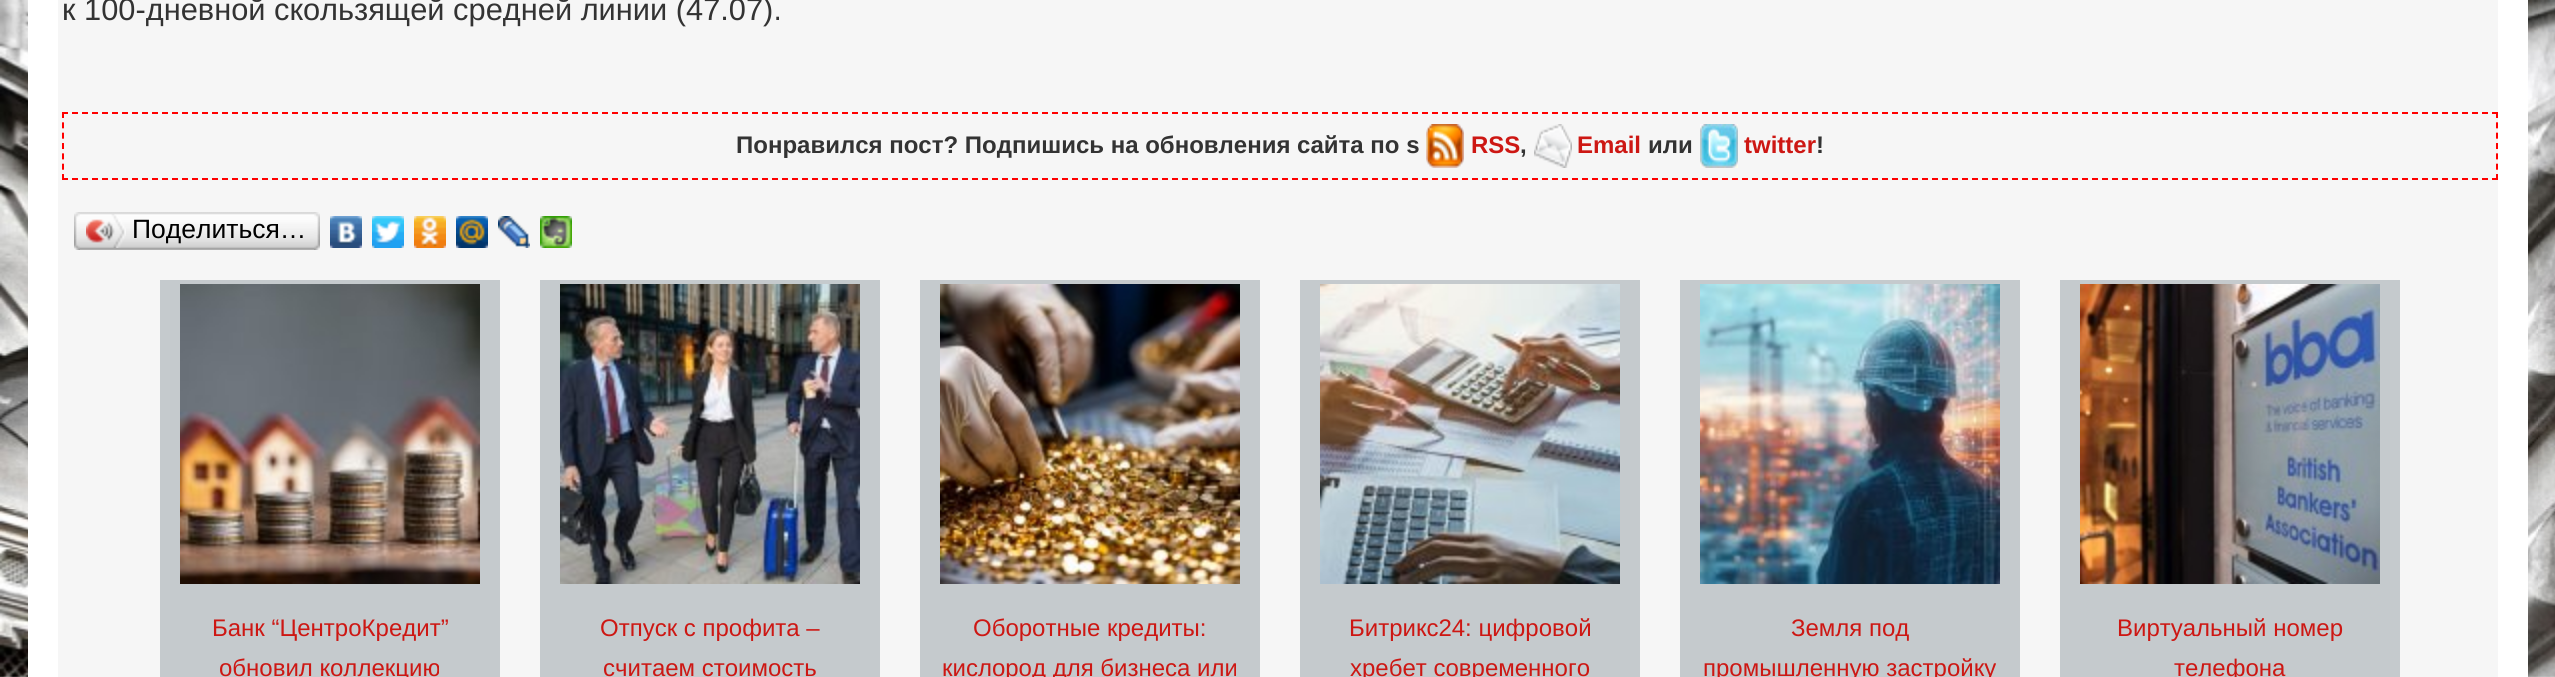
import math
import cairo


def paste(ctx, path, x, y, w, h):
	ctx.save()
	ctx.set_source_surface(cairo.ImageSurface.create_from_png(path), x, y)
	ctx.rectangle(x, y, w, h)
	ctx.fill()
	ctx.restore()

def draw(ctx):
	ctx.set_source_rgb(1, 1, 1)
	ctx.paint()
	paste(ctx, 'media/1.png', 0, 0, 2555, 677)
	ctx.set_source_rgb(1, 1, 1)
	ctx.rectangle(28, 0, 2500, 677)
	ctx.fill()
	ctx.set_source_rgb(0.961, 0.961, 0.961)
	ctx.rectangle(58, 0, 2440, 677)
	ctx.fill()
	ctx.select_font_face('Liberation Sans')
	ctx.set_font_size(30.8)
	ctx.set_source_rgb(0.2, 0.2, 0.2)
	ctx.move_to(62, 20)
	ctx.show_text('к 100-дневной скользящей средней линии (47.07).')
	ctx.new_path()
	ctx.move_to(62, 113)
	ctx.line_to(2498, 113)
	ctx.set_source_rgb(1, 0, 0)
	ctx.set_dash([6, 4])
	ctx.stroke()
	ctx.new_path()
	ctx.move_to(2497, 112)
	ctx.line_to(2497, 180)
	ctx.set_dash([6, 4.34])
	ctx.stroke()
	ctx.new_path()
	ctx.move_to(62, 179)
	ctx.line_to(2498, 179)
	ctx.set_dash([6, 4])
	ctx.stroke()
	ctx.new_path()
	ctx.move_to(63, 112)
	ctx.line_to(63, 180)
	ctx.set_dash([6, 4.34])
	ctx.stroke()
	ctx.select_font_face('Liberation Sans', cairo.FONT_SLANT_NORMAL, cairo.FONT_WEIGHT_BOLD)
	ctx.set_font_size(24)
	ctx.set_source_rgb(0.2, 0.2, 0.2)
	ctx.move_to(736, 153)
	ctx.show_text('Понравился пост? Подпишись на обновления сайта по s')
	paste(ctx, 'media/2.png', 1426, 124, 38, 44)
	ctx.set_source_rgb(0.804, 0.09, 0.075)
	ctx.move_to(1471, 153)
	ctx.show_text('RSS')
	ctx.set_source_rgb(0.2, 0.2, 0.2)
	ctx.move_to(1520, 153)
	ctx.show_text(',')
	paste(ctx, 'media/3.png', 1534, 124, 38, 44)
	ctx.set_source_rgb(0.804, 0.09, 0.075)
	ctx.move_to(1577, 153)
	ctx.show_text('Email')
	ctx.set_source_rgb(0.2, 0.2, 0.2)
	ctx.move_to(1648, 153)
	ctx.show_text('или')
	paste(ctx, 'media/4.png', 1700, 124, 38, 44)
	ctx.set_source_rgb(0.804, 0.09, 0.075)
	ctx.move_to(1744, 153)
	ctx.show_text('twitter')
	ctx.set_source_rgb(0.2, 0.2, 0.2)
	ctx.move_to(1816, 153)
	ctx.show_text('!')
	paste(ctx, 'media/5.png', 80, 212, 234, 38)
	paste(ctx, 'media/6.png', 74, 212, 6, 38)
	paste(ctx, 'media/7.png', 86, 214, 40, 34)
	ctx.select_font_face('Liberation Sans')
	ctx.set_font_size(26.5)
	ctx.set_source_rgb(0, 0, 0)
	ctx.move_to(132, 238)
	ctx.show_text('Поделиться…')
	paste(ctx, 'media/8.png', 314, 212, 6, 38)
	paste(ctx, 'media/9.png', 330, 216, 32, 32)
	paste(ctx, 'media/10.png', 372, 216, 32, 32)
	paste(ctx, 'media/11.png', 414, 216, 32, 32)
	paste(ctx, 'media/12.png', 456, 216, 32, 32)
	paste(ctx, 'media/13.png', 498, 216, 32, 32)
	paste(ctx, 'media/14.png', 540, 216, 32, 32)
	ctx.set_source_rgb(0.773, 0.792, 0.804)
	ctx.rectangle(160, 280, 340, 397)
	ctx.fill()
	paste(ctx, 'media/15.png', 180, 284, 300, 300)
	ctx.set_font_size(24)
	ctx.set_source_rgb(0.804, 0.09, 0.075)
	ctx.move_to(212, 636)
	ctx.show_text('Банк “ЦентроКредит”')
	ctx.move_to(219, 676)
	ctx.show_text('обновил коллекцию')
	ctx.set_source_rgb(0.773, 0.792, 0.804)
	ctx.rectangle(540, 280, 340, 397)
	ctx.fill()
	paste(ctx, 'media/16.png', 560, 284, 300, 300)
	ctx.set_source_rgb(0.804, 0.09, 0.075)
	ctx.move_to(600, 636)
	ctx.show_text('Отпуск с профита –')
	ctx.move_to(603, 676)
	ctx.show_text('считаем стоимость')
	ctx.set_source_rgb(0.773, 0.792, 0.804)
	ctx.rectangle(920, 280, 340, 397)
	ctx.fill()
	paste(ctx, 'media/17.png', 940, 284, 300, 300)
	ctx.set_source_rgb(0.804, 0.09, 0.075)
	ctx.move_to(973, 636)
	ctx.show_text('Оборотные кредиты:')
	ctx.move_to(942, 676)
	ctx.show_text('кислород для бизнеса или')
	ctx.set_source_rgb(0.773, 0.792, 0.804)
	ctx.rectangle(1300, 280, 340, 397)
	ctx.fill()
	paste(ctx, 'media/18.png', 1320, 284, 300, 300)
	ctx.set_source_rgb(0.804, 0.09, 0.075)
	ctx.move_to(1349, 636)
	ctx.show_text('Битрикс24: цифровой')
	ctx.move_to(1350, 676)
	ctx.show_text('хребет современного')
	ctx.set_source_rgb(0.773, 0.792, 0.804)
	ctx.rectangle(1680, 280, 340, 397)
	ctx.fill()
	paste(ctx, 'media/19.png', 1700, 284, 300, 300)
	ctx.set_source_rgb(0.804, 0.09, 0.075)
	ctx.move_to(1791, 636)
	ctx.show_text('Земля под')
	ctx.move_to(1703, 676)
	ctx.show_text('промышленную застройку')
	ctx.set_source_rgb(0.773, 0.792, 0.804)
	ctx.rectangle(2060, 280, 340, 397)
	ctx.fill()
	paste(ctx, 'media/20.png', 2080, 284, 300, 300)
	ctx.set_source_rgb(0.804, 0.09, 0.075)
	ctx.move_to(2117, 636)
	ctx.show_text('Виртуальный номер')
	ctx.move_to(2174, 676)
	ctx.show_text('телефона')


surface = cairo.ImageSurface(cairo.FORMAT_RGB24, 2555, 677)
ctx = cairo.Context(surface)
options = cairo.FontOptions()
options.set_hint_metrics(cairo.HINT_METRICS_OFF)
options.set_hint_style(cairo.HINT_STYLE_NONE)
ctx.set_font_options(options)
ctx.set_miter_limit(4)
draw(ctx)
surface.write_to_png('image.png')
